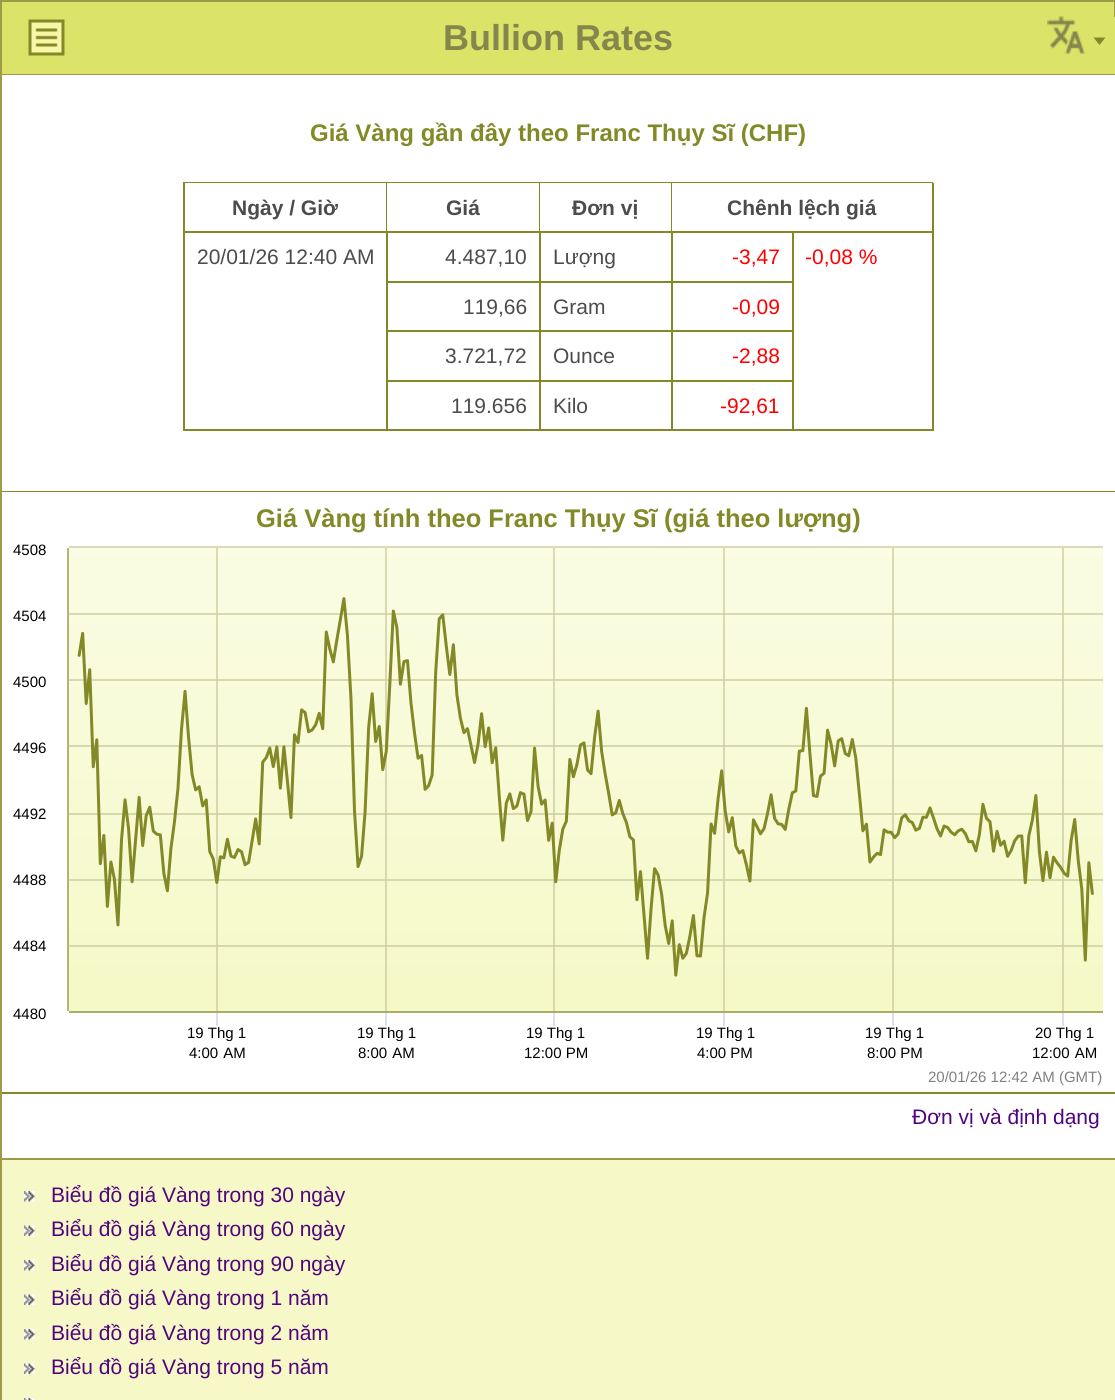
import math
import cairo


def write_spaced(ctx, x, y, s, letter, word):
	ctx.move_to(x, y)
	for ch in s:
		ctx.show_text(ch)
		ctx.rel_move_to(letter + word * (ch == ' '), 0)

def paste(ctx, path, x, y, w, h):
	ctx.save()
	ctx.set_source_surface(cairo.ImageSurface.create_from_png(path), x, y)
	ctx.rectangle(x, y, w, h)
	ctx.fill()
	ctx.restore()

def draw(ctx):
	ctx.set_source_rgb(0.859, 0.89, 0.412)
	ctx.paint()
	ctx.rectangle(1, 1, 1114, 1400)
	ctx.set_source_rgb(0.62, 0.608, 0.278)
	ctx.stroke()
	ctx.set_source_rgb(0.859, 0.89, 0.412)
	ctx.rectangle(1114, 17, 1, 57)
	ctx.fill()
	ctx.set_source_rgb(0.62, 0.608, 0.278)
	ctx.rectangle(2, 74, 1113, 1)
	ctx.fill()
	paste(ctx, 'media/1.png', 28, 19, 37, 37)
	ctx.select_font_face('Liberation Sans', cairo.FONT_SLANT_NORMAL, cairo.FONT_WEIGHT_BOLD)
	ctx.set_font_size(36)
	ctx.set_source_rgb(0.518, 0.525, 0.298)
	ctx.move_to(443, 50)
	ctx.show_text('Bullion Rates')
	paste(ctx, 'media/2.png', 1047, 16, 38, 38)
	ctx.set_source_rgb(0.51, 0.537, 0.149)
	ctx.new_path()
	ctx.move_to(1093.5, 37.5)
	ctx.line_to(1105.5, 37.5)
	ctx.line_to(1099.5, 45)
	ctx.close_path()
	ctx.fill()
	ctx.set_source_rgb(1, 1, 1)
	ctx.rectangle(2, 75, 1113, 1083)
	ctx.fill()
	ctx.set_font_size(24)
	ctx.set_source_rgb(0.51, 0.537, 0.149)
	ctx.move_to(310, 141)
	ctx.show_text('Giá Vàng gần đây theo Franc Thụy Sĩ (CHF)')
	ctx.rectangle(183, 182, 750, 1)
	ctx.rectangle(183, 182, 2, 249)
	ctx.rectangle(386, 183, 1, 50)
	ctx.rectangle(185, 231, 202, 2)
	ctx.fill()
	ctx.set_font_size(21)
	ctx.set_source_rgb(0.298, 0.298, 0.298)
	ctx.move_to(232, 215)
	ctx.show_text('Ngày / Giờ')
	ctx.set_source_rgb(0.51, 0.537, 0.149)
	ctx.rectangle(539, 183, 1, 50)
	ctx.fill()
	ctx.rectangle(387, 231, 153, 2)
	ctx.fill()
	ctx.set_source_rgb(0.298, 0.298, 0.298)
	ctx.move_to(446, 215)
	ctx.show_text('Giá')
	ctx.set_source_rgb(0.51, 0.537, 0.149)
	ctx.rectangle(671, 183, 1, 50)
	ctx.fill()
	ctx.rectangle(540, 231, 132, 2)
	ctx.fill()
	ctx.set_source_rgb(0.298, 0.298, 0.298)
	ctx.move_to(572, 215)
	ctx.show_text('Đơn vị')
	ctx.set_source_rgb(0.51, 0.537, 0.149)
	ctx.rectangle(932, 183, 2, 248)
	ctx.fill()
	ctx.rectangle(672, 231, 261, 2)
	ctx.fill()
	ctx.set_source_rgb(0.298, 0.298, 0.298)
	ctx.move_to(727, 215)
	ctx.show_text('Chênh lệch giá')
	ctx.set_source_rgb(0.51, 0.537, 0.149)
	ctx.rectangle(386, 233, 2, 198)
	ctx.fill()
	ctx.rectangle(185, 429, 202, 2)
	ctx.fill()
	ctx.select_font_face('Liberation Sans')
	ctx.set_source_rgb(0.298, 0.298, 0.298)
	ctx.move_to(197, 264)
	ctx.show_text('20/01/26 12:40 AM')
	ctx.set_source_rgb(0.51, 0.537, 0.149)
	ctx.rectangle(539, 233, 2, 49)
	ctx.fill()
	ctx.rectangle(387, 281, 153, 2)
	ctx.fill()
	ctx.set_source_rgb(0.298, 0.298, 0.298)
	ctx.move_to(445, 264)
	ctx.show_text('4.487,10')
	ctx.set_source_rgb(0.51, 0.537, 0.149)
	ctx.rectangle(671, 233, 2, 49)
	ctx.fill()
	ctx.rectangle(540, 281, 132, 2)
	ctx.fill()
	ctx.set_source_rgb(0.298, 0.298, 0.298)
	ctx.move_to(553, 264)
	ctx.show_text('Lượng')
	ctx.set_source_rgb(0.51, 0.537, 0.149)
	ctx.rectangle(792, 233, 2, 49)
	ctx.fill()
	ctx.rectangle(672, 281, 122, 2)
	ctx.fill()
	ctx.set_source_rgb(1, 0, 0)
	ctx.move_to(732, 264)
	ctx.show_text('-3,47')
	ctx.set_source_rgb(0.51, 0.537, 0.149)
	ctx.rectangle(794, 429, 139, 2)
	ctx.fill()
	ctx.set_source_rgb(1, 0, 0)
	ctx.move_to(805, 264)
	ctx.show_text('-0,08 %')
	ctx.set_source_rgb(0.51, 0.537, 0.149)
	ctx.rectangle(539, 282, 2, 99)
	ctx.fill()
	ctx.rectangle(387, 330, 153, 2)
	ctx.fill()
	ctx.set_source_rgb(0.298, 0.298, 0.298)
	ctx.move_to(463, 314)
	ctx.show_text('119,66')
	ctx.set_source_rgb(0.51, 0.537, 0.149)
	ctx.rectangle(671, 282, 2, 99)
	ctx.fill()
	ctx.rectangle(540, 330, 132, 2)
	ctx.fill()
	ctx.set_source_rgb(0.298, 0.298, 0.298)
	ctx.move_to(553, 314)
	ctx.show_text('Gram')
	ctx.set_source_rgb(0.51, 0.537, 0.149)
	ctx.rectangle(792, 282, 2, 99)
	ctx.fill()
	ctx.rectangle(672, 330, 122, 2)
	ctx.fill()
	ctx.set_source_rgb(1, 0, 0)
	ctx.move_to(732, 314)
	ctx.show_text('-0,09')
	ctx.set_source_rgb(0.51, 0.537, 0.149)
	ctx.rectangle(387, 380, 407, 2)
	ctx.fill()
	ctx.set_source_rgb(0.298, 0.298, 0.298)
	ctx.move_to(445, 363)
	ctx.show_text('3.721,72')
	ctx.move_to(553, 363)
	ctx.show_text('Ounce')
	ctx.set_source_rgb(1, 0, 0)
	ctx.move_to(732, 363)
	ctx.show_text('-2,88')
	ctx.set_source_rgb(0.51, 0.537, 0.149)
	ctx.rectangle(539, 381, 2, 50)
	ctx.fill()
	ctx.rectangle(387, 429, 153, 2)
	ctx.fill()
	ctx.set_source_rgb(0.298, 0.298, 0.298)
	ctx.move_to(451, 413)
	ctx.show_text('119.656')
	ctx.set_source_rgb(0.51, 0.537, 0.149)
	ctx.rectangle(671, 381, 2, 50)
	ctx.fill()
	ctx.rectangle(540, 429, 132, 2)
	ctx.fill()
	ctx.set_source_rgb(0.298, 0.298, 0.298)
	ctx.move_to(553, 413)
	ctx.show_text('Kilo')
	ctx.set_source_rgb(0.51, 0.537, 0.149)
	ctx.rectangle(792, 381, 2, 50)
	ctx.fill()
	ctx.rectangle(672, 429, 122, 2)
	ctx.fill()
	ctx.set_source_rgb(1, 0, 0)
	ctx.move_to(720, 413)
	ctx.show_text('-92,61')
	ctx.set_source_rgb(0.51, 0.537, 0.149)
	ctx.rectangle(2, 491, 1113, 1)
	ctx.fill()
	ctx.rectangle(2, 1092, 1113, 2)
	ctx.fill()
	paste(ctx, 'media/3.png', 2, 492, 1113, 534)
	ctx.select_font_face('Liberation Sans', cairo.FONT_SLANT_NORMAL, cairo.FONT_WEIGHT_BOLD)
	ctx.set_font_size(25.5)
	ctx.move_to(256, 527)
	ctx.show_text('Giá Vàng tính theo Franc Thụy Sĩ (giá theo lượng)')
	ctx.select_font_face('Liberation Sans')
	ctx.set_font_size(15)
	ctx.set_source_rgb(0, 0, 0)
	for x, y, s in [
		(13, 555, '4508'),
		(13, 621, '4504'),
		(13, 687, '4500'),
		(13, 753, '4496'),
		(13, 819, '4492'),
		(13, 885, '4488'),
		(13, 951, '4484'),
		(13, 1019, '4480'),
		(187, 1038, '19 Thg 1'),
		(357, 1038, '19 Thg 1'),
		(526, 1038, '19 Thg 1'),
		(696, 1038, '19 Thg 1'),
		(865, 1038, '19 Thg 1'),
		(1035, 1038, '20 Thg 1'),
	]:
		ctx.move_to(x, y)
		ctx.show_text(s)
	write_spaced(ctx, 189, 1058, '4:00 AM', 0, 1)
	write_spaced(ctx, 358, 1058, '8:00 AM', 0, 1)
	for x, y, s in [
		(524, 1058, '12:00 PM'),
		(697, 1058, '4:00 PM'),
		(867, 1058, '8:00 PM'),
	]:
		ctx.move_to(x, y)
		ctx.show_text(s)
	write_spaced(ctx, 1032, 1058, '12:00 AM', 0, 1)
	ctx.set_source_rgb(0.502, 0.502, 0.502)
	ctx.move_to(928, 1082)
	ctx.show_text('20/01/26 12:42 AM (GMT)')
	ctx.set_font_size(21)
	ctx.set_source_rgb(0.314, 0.016, 0.494)
	ctx.move_to(912, 1124)
	ctx.show_text('Đơn vị và định dạng')
	ctx.set_source_rgb(0.62, 0.608, 0.278)
	ctx.rectangle(2, 1158, 1113, 2)
	ctx.fill()
	ctx.set_source_rgb(0.961, 0.976, 0.78)
	ctx.rectangle(2, 1160, 1113, 240)
	ctx.fill()
	paste(ctx, 'media/4.png', 24, 1191, 11, 11)
	ctx.set_source_rgb(0.314, 0.016, 0.494)
	ctx.move_to(51, 1202)
	ctx.show_text('Biểu đồ giá Vàng trong 30 ngày')
	paste(ctx, 'media/5.png', 24, 1225, 11, 11)
	ctx.move_to(51, 1236)
	ctx.show_text('Biểu đồ giá Vàng trong 60 ngày')
	paste(ctx, 'media/4.png', 24, 1260, 11, 11)
	ctx.move_to(51, 1271)
	ctx.show_text('Biểu đồ giá Vàng trong 90 ngày')
	paste(ctx, 'media/5.png', 24, 1294, 11, 11)
	ctx.move_to(51, 1305)
	ctx.show_text('Biểu đồ giá Vàng trong 1 năm')
	paste(ctx, 'media/4.png', 24, 1329, 11, 11)
	ctx.move_to(51, 1340)
	ctx.show_text('Biểu đồ giá Vàng trong 2 năm')
	paste(ctx, 'media/5.png', 24, 1363, 11, 11)
	ctx.move_to(51, 1374)
	ctx.show_text('Biểu đồ giá Vàng trong 5 năm')
	paste(ctx, 'media/6.png', 24, 1398, 11, 2)


surface = cairo.ImageSurface(cairo.FORMAT_RGB24, 1115, 1400)
ctx = cairo.Context(surface)
options = cairo.FontOptions()
options.set_hint_metrics(cairo.HINT_METRICS_OFF)
options.set_hint_style(cairo.HINT_STYLE_NONE)
ctx.set_font_options(options)
ctx.set_miter_limit(4)
draw(ctx)
surface.write_to_png('image.png')
